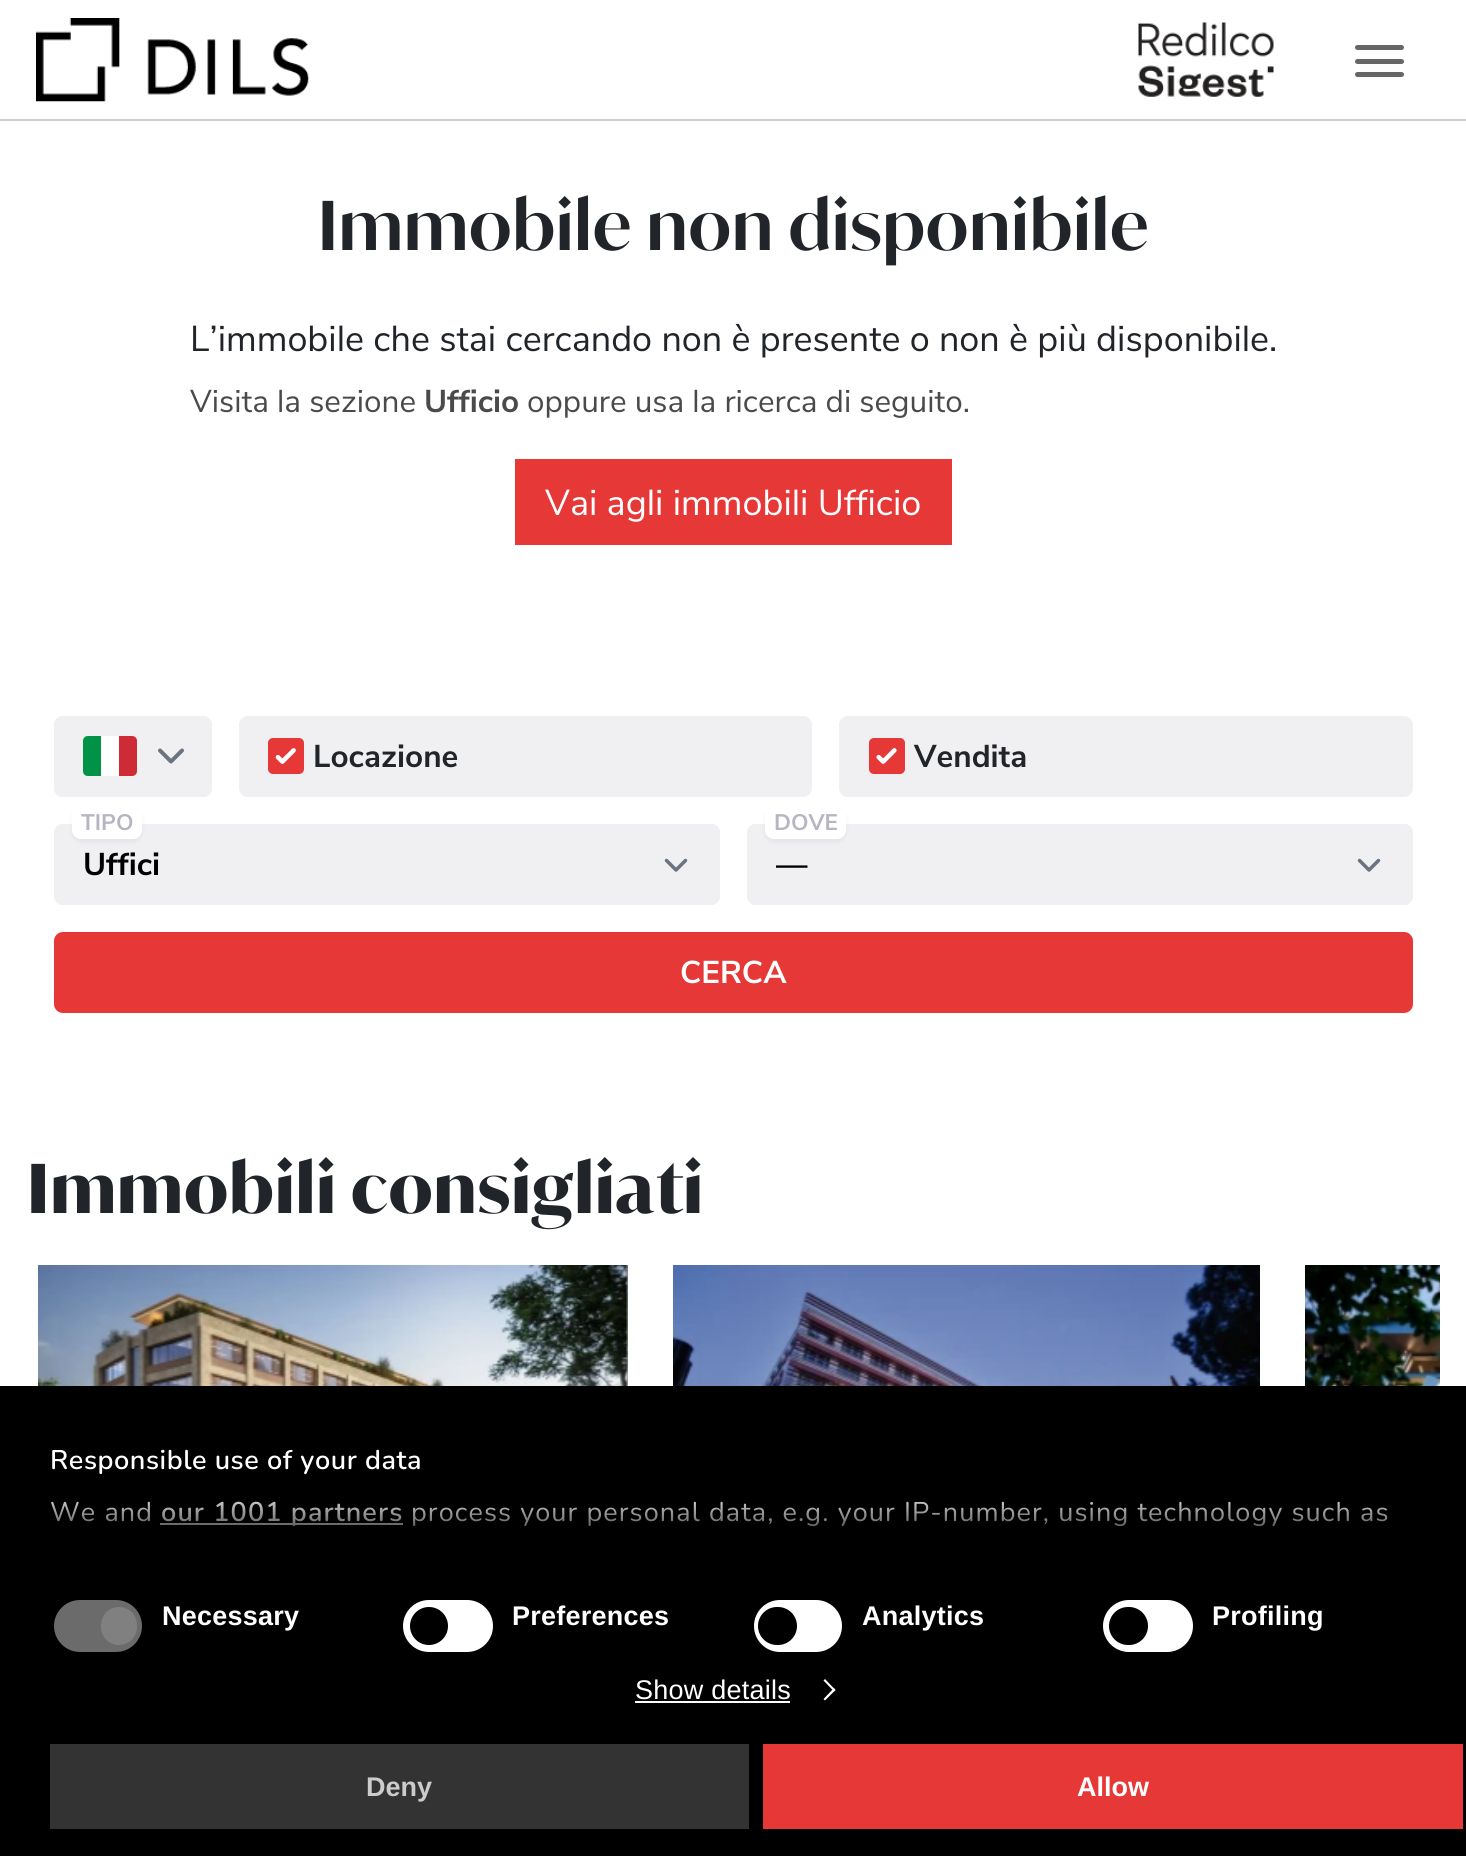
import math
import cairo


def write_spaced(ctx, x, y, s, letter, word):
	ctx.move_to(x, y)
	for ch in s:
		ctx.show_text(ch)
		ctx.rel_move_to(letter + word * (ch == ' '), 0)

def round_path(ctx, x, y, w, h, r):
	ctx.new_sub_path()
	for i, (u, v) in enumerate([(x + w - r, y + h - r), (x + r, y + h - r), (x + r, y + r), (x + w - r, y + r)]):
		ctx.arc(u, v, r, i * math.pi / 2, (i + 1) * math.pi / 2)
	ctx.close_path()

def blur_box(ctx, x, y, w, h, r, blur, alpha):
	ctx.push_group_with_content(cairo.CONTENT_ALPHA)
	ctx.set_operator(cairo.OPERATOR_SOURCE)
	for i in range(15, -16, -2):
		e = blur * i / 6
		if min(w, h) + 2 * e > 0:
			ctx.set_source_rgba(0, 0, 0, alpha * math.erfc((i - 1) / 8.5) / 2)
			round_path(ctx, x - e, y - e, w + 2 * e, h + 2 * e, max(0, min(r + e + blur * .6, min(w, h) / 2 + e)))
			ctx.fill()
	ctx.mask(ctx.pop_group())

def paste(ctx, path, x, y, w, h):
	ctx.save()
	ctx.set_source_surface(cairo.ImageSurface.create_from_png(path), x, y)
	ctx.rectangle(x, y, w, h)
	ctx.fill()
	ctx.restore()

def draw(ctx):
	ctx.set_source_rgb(1, 1, 1)
	ctx.paint()
	ctx.set_source_rgb(0.804, 0.804, 0.804)
	ctx.rectangle(0, 119, 1466, 2)
	ctx.fill()
	paste(ctx, 'media/1.png', 36, 18, 273, 84)
	paste(ctx, 'media/2.png', 1138, 22, 136, 75)
	ctx.set_source_rgb(0.4, 0.4, 0.4)
	round_path(ctx, 1355, 45, 49, 5, 2.5)
	ctx.fill()
	round_path(ctx, 1355, 59, 49, 5, 2.5)
	ctx.fill()
	round_path(ctx, 1355, 72, 49, 5, 2.5)
	ctx.fill()
	ctx.select_font_face('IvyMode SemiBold')
	ctx.set_font_size(67.5)
	ctx.set_source_rgb(0.129, 0.145, 0.161)
	write_spaced(ctx, 318, 250, 'Immobile non disponibile', 0.9, 0)
	ctx.select_font_face('Nunito Sans')
	ctx.set_font_size(36)
	ctx.move_to(190, 351)
	ctx.show_text('L’immobile che stai cercando non è presente o non è più disponibile.')
	ctx.set_font_size(31.5)
	ctx.set_source_rgb(0.29, 0.29, 0.286)
	ctx.move_to(190, 412)
	ctx.show_text('Visita la sezione')
	ctx.select_font_face('Nunito Sans', cairo.FONT_SLANT_NORMAL, cairo.FONT_WEIGHT_BOLD)
	ctx.move_to(424, 412)
	ctx.show_text('Ufficio')
	ctx.select_font_face('Nunito Sans')
	ctx.move_to(527, 412)
	ctx.show_text('oppure usa la ricerca di seguito.')
	ctx.set_source_rgb(0.906, 0.22, 0.22)
	ctx.rectangle(515, 459, 437, 86)
	ctx.fill()
	ctx.set_font_size(36)
	ctx.set_source_rgb(1, 1, 1)
	ctx.move_to(545, 515)
	ctx.show_text('Vai agli immobili Ufficio')
	ctx.set_source_rgb(0.941, 0.941, 0.953)
	round_path(ctx, 54, 716, 158, 81, 9)
	ctx.fill()
	ctx.new_path()
	ctx.move_to(160, 750.5)
	ctx.line_to(171, 761.5)
	ctx.line_to(182, 750.5)
	ctx.set_source_rgb(0.42, 0.447, 0.502)
	ctx.set_line_width(4)
	ctx.set_line_cap(cairo.LINE_CAP_ROUND)
	ctx.set_line_join(cairo.LINE_JOIN_ROUND)
	ctx.stroke()
	round_path(ctx, 55, 717, 156, 79, 8)
	ctx.set_source_rgb(0.941, 0.941, 0.953)
	ctx.set_line_width(2)
	ctx.set_line_cap(cairo.LINE_CAP_BUTT)
	ctx.set_line_join(cairo.LINE_JOIN_MITER)
	ctx.stroke()
	ctx.set_source_rgb(1, 1, 1)
	round_path(ctx, 83, 736, 54, 40, 5)
	ctx.fill()
	ctx.set_source_rgb(0, 0.573, 0.275)
	ctx.new_path()
	ctx.move_to(88, 736)
	ctx.line_to(101, 736)
	ctx.line_to(101, 776)
	ctx.line_to(88, 776)
	ctx.curve_to(85, 776, 83, 774, 83, 771)
	ctx.line_to(83, 741)
	ctx.curve_to(83, 738, 85, 736, 88, 736)
	ctx.close_path()
	ctx.fill()
	ctx.set_source_rgb(0.808, 0.169, 0.216)
	ctx.new_path()
	ctx.move_to(119, 736)
	ctx.line_to(132, 736)
	ctx.curve_to(135, 736, 137, 738, 137, 741)
	ctx.line_to(137, 771)
	ctx.curve_to(137, 774, 135, 776, 132, 776)
	ctx.line_to(119, 776)
	ctx.close_path()
	ctx.fill()
	ctx.set_source_rgb(0.941, 0.941, 0.953)
	round_path(ctx, 240, 717, 571, 79, 8)
	ctx.fill_preserve()
	ctx.stroke()
	ctx.set_source_rgb(0.906, 0.22, 0.22)
	round_path(ctx, 268, 738, 36, 36, 5)
	ctx.fill()
	paste(ctx, 'media/3.png', 275, 748, 21, 16)
	ctx.select_font_face('Nunito Sans', cairo.FONT_SLANT_NORMAL, cairo.FONT_WEIGHT_BOLD)
	ctx.set_font_size(31.5)
	ctx.set_source_rgb(0.129, 0.145, 0.161)
	ctx.move_to(313, 767)
	ctx.show_text('Locazione')
	ctx.set_source_rgb(0.941, 0.941, 0.953)
	round_path(ctx, 840, 717, 572, 79, 8)
	ctx.fill_preserve()
	ctx.stroke()
	ctx.set_source_rgb(0.906, 0.22, 0.22)
	round_path(ctx, 869, 738, 36, 36, 5)
	ctx.fill()
	paste(ctx, 'media/4.png', 876, 748, 21, 16)
	ctx.set_source_rgb(0.129, 0.145, 0.161)
	ctx.move_to(914, 767)
	ctx.show_text('Vendita')
	ctx.set_source_rgb(0.941, 0.941, 0.953)
	round_path(ctx, 54, 824, 666, 81, 9)
	ctx.fill()
	ctx.new_path()
	ctx.move_to(666.5, 860.5)
	ctx.line_to(676, 870)
	ctx.line_to(685.5, 860.5)
	ctx.set_source_rgb(0.42, 0.447, 0.502)
	ctx.set_line_width(3.5)
	ctx.set_line_cap(cairo.LINE_CAP_ROUND)
	ctx.set_line_join(cairo.LINE_JOIN_ROUND)
	ctx.stroke()
	round_path(ctx, 55, 825, 664, 79, 8)
	ctx.set_source_rgb(0.941, 0.941, 0.953)
	ctx.set_line_width(2)
	ctx.set_line_cap(cairo.LINE_CAP_BUTT)
	ctx.set_line_join(cairo.LINE_JOIN_MITER)
	ctx.stroke()
	ctx.set_source_rgb(0, 0, 0)
	blur_box(ctx, 72, 808, 70, 34, 9, 2, 0.05)
	ctx.set_source_rgb(1, 1, 1)
	round_path(ctx, 72, 806, 70, 33, 9)
	ctx.fill()
	ctx.set_font_size(22.5)
	ctx.set_source_rgb(0.71, 0.71, 0.765)
	ctx.move_to(81, 830)
	ctx.show_text('TIPO')
	ctx.set_font_size(31.5)
	ctx.set_source_rgb(0, 0, 0)
	ctx.move_to(83, 875)
	ctx.show_text('Uffici')
	ctx.set_source_rgb(0.941, 0.941, 0.953)
	round_path(ctx, 747, 824, 666, 81, 9)
	ctx.fill()
	ctx.new_path()
	ctx.move_to(1359.5, 860.5)
	ctx.line_to(1369, 870)
	ctx.line_to(1378.5, 860.5)
	ctx.set_source_rgb(0.42, 0.447, 0.502)
	ctx.set_line_width(3.5)
	ctx.set_line_cap(cairo.LINE_CAP_ROUND)
	ctx.set_line_join(cairo.LINE_JOIN_ROUND)
	ctx.stroke()
	round_path(ctx, 748, 825, 664, 79, 8)
	ctx.set_source_rgb(0.941, 0.941, 0.953)
	ctx.set_line_width(2)
	ctx.set_line_cap(cairo.LINE_CAP_BUTT)
	ctx.set_line_join(cairo.LINE_JOIN_MITER)
	ctx.stroke()
	ctx.set_source_rgb(0, 0, 0)
	blur_box(ctx, 765, 808, 81, 34, 9, 2, 0.05)
	ctx.set_source_rgb(1, 1, 1)
	round_path(ctx, 765, 806, 81, 33, 9)
	ctx.fill()
	ctx.set_font_size(22.5)
	ctx.set_source_rgb(0.71, 0.71, 0.765)
	ctx.move_to(774, 830)
	ctx.show_text('DOVE')
	ctx.set_font_size(31.5)
	ctx.set_source_rgb(0, 0, 0)
	ctx.move_to(776, 875)
	ctx.show_text('—')
	ctx.set_source_rgb(0.906, 0.22, 0.22)
	round_path(ctx, 55, 933, 1357, 79, 8)
	ctx.fill_preserve()
	ctx.stroke()
	ctx.set_source_rgb(1, 1, 1)
	ctx.move_to(680, 983)
	ctx.show_text('CERCA')
	ctx.select_font_face('IvyMode', cairo.FONT_SLANT_NORMAL, cairo.FONT_WEIGHT_BOLD)
	ctx.set_font_size(67.5)
	ctx.set_source_rgb(0.129, 0.145, 0.161)
	write_spaced(ctx, 27, 1213, 'Immobili consigliati', 0.9, 0)
	ctx.set_source_rgb(0.922, 0.922, 0.922)
	ctx.rectangle(626, 1265, 2, 121)
	ctx.fill()
	paste(ctx, 'media/5.png', 38, 1265, 590, 121)
	paste(ctx, 'media/6.png', 673, 1265, 587, 121)
	paste(ctx, 'media/7.png', 1305, 1265, 135, 121)
	ctx.set_source_rgb(0, 0, 0)
	ctx.rectangle(0, 1386, 1466, 470)
	ctx.fill()
	ctx.select_font_face('Nunito SemiBold')
	ctx.set_font_size(27)
	ctx.set_source_rgb(1, 1, 1)
	write_spaced(ctx, 50, 1469, 'Responsible use of your data', 0.55, 0)
	ctx.select_font_face('Nunito')
	write_spaced(ctx, 50, 1521, 'We and', 1.12, 0)
	ctx.rectangle(160, 1523, 243, 2)
	ctx.fill()
	ctx.select_font_face('Nunito SemiBold')
	write_spaced(ctx, 161, 1521, 'our 1001 partners', 1.12, 0)
	ctx.select_font_face('Nunito')
	write_spaced(ctx, 411, 1521, 'process your personal data, e.g. your IP-number, using technology such as', 1.12, 0)
	gradient = cairo.LinearGradient(722, 1589, 722, 1487)
	gradient.add_color_stop_rgba(0, 0, 0, 0, 1)
	gradient.add_color_stop_rgba(0.5, 0, 0, 0, 0.8)
	gradient.add_color_stop_rgba(1, 0, 0, 0, 0)
	ctx.set_source(gradient)
	ctx.rectangle(50, 1501, 1338, 26)
	ctx.fill()
	ctx.set_source_rgb(0.42, 0.42, 0.42)
	round_path(ctx, 54, 1600, 88, 52, 26)
	ctx.fill()
	ctx.set_source_rgb(0.502, 0.502, 0.502)
	round_path(ctx, 101, 1607, 36, 38, 18)
	ctx.fill()
	ctx.select_font_face('Liberation Sans', cairo.FONT_SLANT_NORMAL, cairo.FONT_WEIGHT_BOLD)
	ctx.set_source_rgb(1, 1, 1)
	write_spaced(ctx, 162, 1625, 'Necessary', 0.25, 0)
	round_path(ctx, 403, 1600, 90, 52, 26)
	ctx.fill()
	ctx.set_source_rgb(0, 0, 0)
	ctx.arc(429, 1626, 19, 0, 2 * math.pi)
	ctx.fill()
	ctx.set_source_rgb(1, 1, 1)
	write_spaced(ctx, 512, 1625, 'Preferences', 0.25, 0)
	round_path(ctx, 754, 1600, 88, 52, 26)
	ctx.fill()
	ctx.set_source_rgb(0, 0, 0)
	round_path(ctx, 758, 1607, 39, 38, 19)
	ctx.fill()
	ctx.set_source_rgb(1, 1, 1)
	write_spaced(ctx, 862, 1625, 'Analytics', 0.25, 0)
	round_path(ctx, 1103, 1600, 90, 52, 26)
	ctx.fill()
	ctx.set_source_rgb(0, 0, 0)
	round_path(ctx, 1109, 1607, 39, 38, 19)
	ctx.fill()
	ctx.set_source_rgb(1, 1, 1)
	write_spaced(ctx, 1212, 1625, 'Profiling', 0.25, 0)
	ctx.select_font_face('Liberation Sans')
	write_spaced(ctx, 635, 1699, 'Show details', 0.25, 0)
	ctx.rectangle(635, 1701, 155, 2)
	ctx.fill()
	ctx.new_path()
	ctx.move_to(825, 1679)
	ctx.line_to(835.5, 1690)
	ctx.line_to(834, 1691.5)
	ctx.line_to(823.5, 1680.5)
	ctx.close_path()
	ctx.fill()
	ctx.new_path()
	ctx.move_to(834, 1688)
	ctx.line_to(835.5, 1690)
	ctx.line_to(825, 1700.5)
	ctx.line_to(823.5, 1699)
	ctx.close_path()
	ctx.fill()
	ctx.set_source_rgb(0.2, 0.2, 0.2)
	ctx.rectangle(50, 1744, 699, 85)
	ctx.fill()
	ctx.select_font_face('Liberation Sans', cairo.FONT_SLANT_NORMAL, cairo.FONT_WEIGHT_BOLD)
	ctx.set_source_rgb(0.8, 0.8, 0.8)
	ctx.move_to(366, 1796)
	ctx.show_text('Deny')
	ctx.set_source_rgb(0.906, 0.22, 0.22)
	ctx.rectangle(763, 1744, 700, 85)
	ctx.fill()
	ctx.set_source_rgb(1, 1, 1)
	ctx.move_to(1077, 1796)
	ctx.show_text('Allow')


surface = cairo.ImageSurface(cairo.FORMAT_RGB24, 1466, 1856)
ctx = cairo.Context(surface)
options = cairo.FontOptions()
options.set_hint_metrics(cairo.HINT_METRICS_OFF)
options.set_hint_style(cairo.HINT_STYLE_NONE)
ctx.set_font_options(options)
ctx.set_miter_limit(4)
draw(ctx)
surface.write_to_png('image.png')
